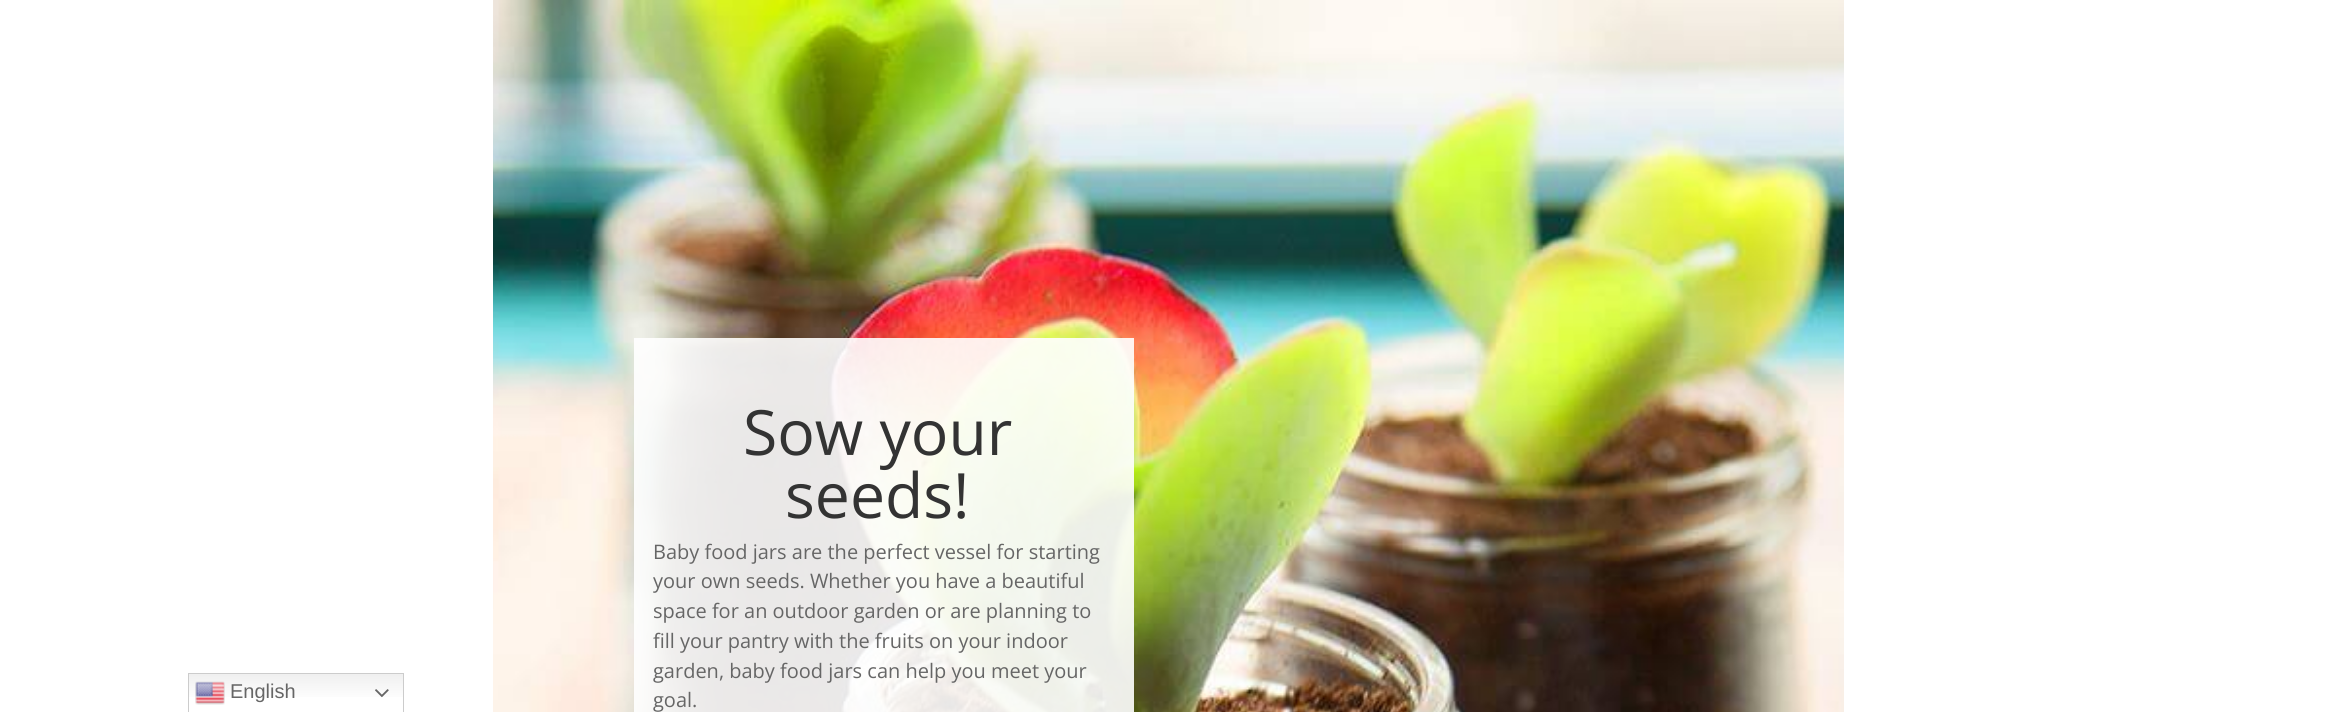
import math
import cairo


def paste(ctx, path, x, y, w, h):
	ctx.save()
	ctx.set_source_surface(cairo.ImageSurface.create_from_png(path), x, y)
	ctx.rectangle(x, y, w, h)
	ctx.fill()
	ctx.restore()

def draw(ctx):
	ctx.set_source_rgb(1, 1, 1)
	ctx.paint()
	gradient = cairo.LinearGradient(296, 673, 296, 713)
	gradient.add_color_stop_rgba(0, 0.937, 0.937, 0.937, 1)
	gradient.add_color_stop_rgba(0.7, 1, 1, 1, 1)
	ctx.set_source(gradient)
	ctx.rectangle(189, 674, 214, 23)
	ctx.fill()
	ctx.rectangle(188.5, 673.5, 215, 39)
	ctx.set_source_rgb(0.8, 0.8, 0.8)
	ctx.set_line_width(1)
	ctx.stroke()
	paste(ctx, 'media/1.png', 195, 681, 30, 24)
	ctx.select_font_face('Liberation Sans')
	ctx.set_font_size(20)
	ctx.set_source_rgb(0.4, 0.4, 0.4)
	ctx.move_to(230, 698)
	ctx.show_text('English')
	paste(ctx, 'media/2.png', 375, 689, 14, 9)
	paste(ctx, 'media/3.png', 493, 0, 1351, 712)
	ctx.set_source_rgba(1, 1, 1, 0.9)
	ctx.rectangle(634, 338, 500, 374)
	ctx.fill()
	ctx.select_font_face('Open Sans')
	ctx.set_font_size(62.5)
	ctx.set_source_rgb(0.2, 0.2, 0.2)
	ctx.move_to(743, 455)
	ctx.show_text('Sow your')
	ctx.move_to(785, 518)
	ctx.show_text('seeds!')
	ctx.set_font_size(20)
	ctx.set_source_rgb(0.4, 0.4, 0.4)
	for x, y, s in [
		(653, 559, 'Baby food jars are the perfect vessel for starting'),
		(653, 588, 'your own seeds. Whether you have a beautiful'),
		(653, 618, 'space for an outdoor garden or are planning to'),
		(653, 648, 'fill your pantry with the fruits on your indoor'),
		(653, 678, 'garden, baby food jars can help you meet your'),
		(653, 707, 'goal.'),
	]:
		ctx.move_to(x, y)
		ctx.show_text(s)


surface = cairo.ImageSurface(cairo.FORMAT_RGB24, 2337, 712)
ctx = cairo.Context(surface)
options = cairo.FontOptions()
options.set_hint_metrics(cairo.HINT_METRICS_OFF)
options.set_hint_style(cairo.HINT_STYLE_NONE)
ctx.set_font_options(options)
ctx.set_miter_limit(4)
draw(ctx)
surface.write_to_png('image.png')
